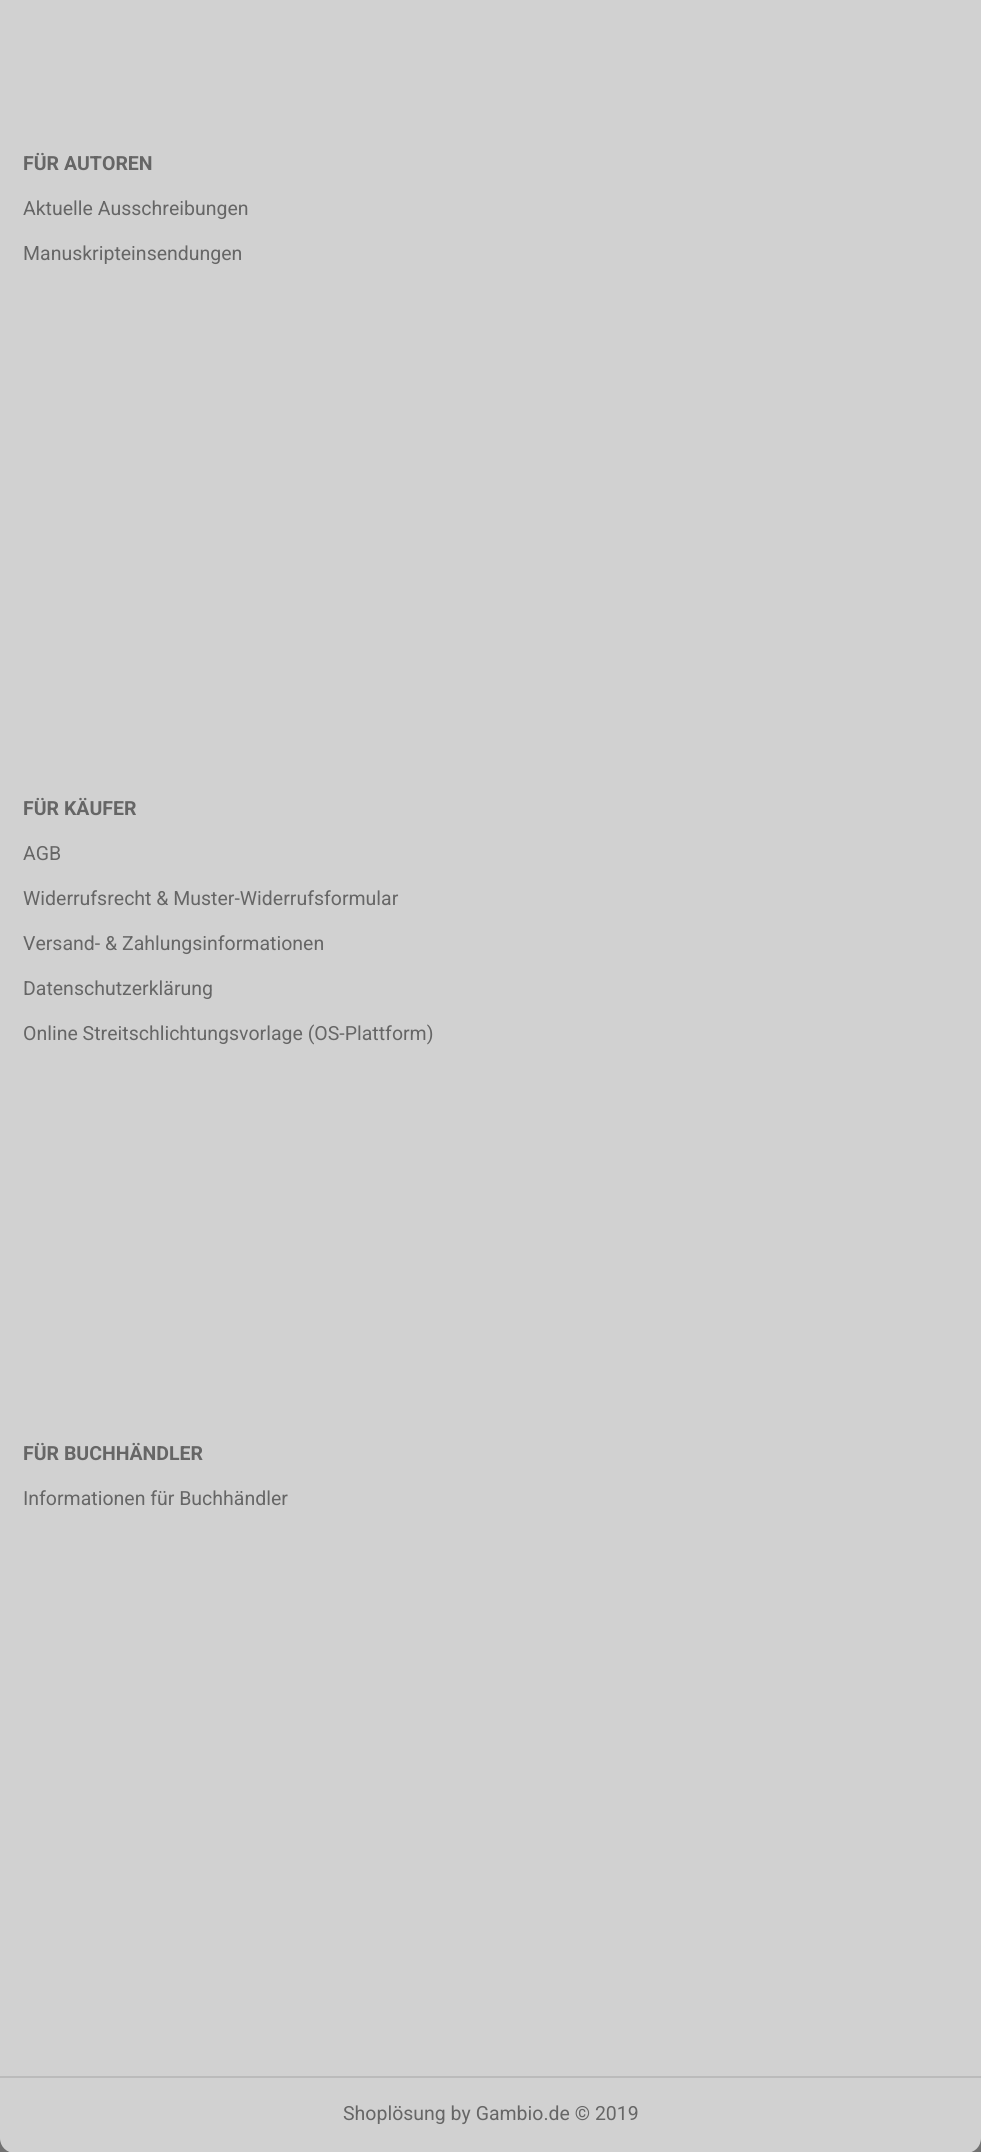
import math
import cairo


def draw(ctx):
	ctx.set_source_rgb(0.443, 0.443, 0.443)
	ctx.paint()
	ctx.set_source_rgb(0.82, 0.82, 0.82)
	ctx.new_path()
	ctx.move_to(0, -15)
	ctx.line_to(981, -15)
	ctx.line_to(981, 2138)
	ctx.curve_to(981, 2146.5, 974.5, 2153, 966, 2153)
	ctx.line_to(15, 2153)
	ctx.curve_to(6.5, 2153, 0, 2146.5, 0, 2138)
	ctx.close_path()
	ctx.fill()
	ctx.set_source_rgb(0.733, 0.733, 0.733)
	ctx.rectangle(0, 2076, 981, 2)
	ctx.fill()
	ctx.select_font_face('Roboto', cairo.FONT_SLANT_NORMAL, cairo.FONT_WEIGHT_BOLD)
	ctx.set_font_size(19.5)
	ctx.set_source_rgb(0.4, 0.4, 0.4)
	ctx.move_to(23, 170)
	ctx.show_text('FÜR AUTOREN')
	ctx.select_font_face('Roboto')
	ctx.move_to(23, 215)
	ctx.show_text('Aktuelle Ausschreibungen')
	ctx.move_to(23, 260)
	ctx.show_text('Manuskripteinsendungen')
	ctx.select_font_face('Roboto', cairo.FONT_SLANT_NORMAL, cairo.FONT_WEIGHT_BOLD)
	ctx.move_to(23, 815)
	ctx.show_text('FÜR KÄUFER')
	ctx.select_font_face('Roboto')
	for x, y, s in [
		(23, 860, 'AGB'),
		(23, 905, 'Widerrufsrecht & Muster-Widerrufsformular'),
		(23, 950, 'Versand- & Zahlungsinformationen'),
		(23, 995, 'Datenschutzerklärung'),
		(23, 1040, 'Online Streitschlichtungsvorlage (OS-Plattform)'),
	]:
		ctx.move_to(x, y)
		ctx.show_text(s)
	ctx.select_font_face('Roboto', cairo.FONT_SLANT_NORMAL, cairo.FONT_WEIGHT_BOLD)
	ctx.move_to(23, 1460)
	ctx.show_text('FÜR BUCHHÄNDLER')
	ctx.select_font_face('Roboto')
	ctx.move_to(23, 1505)
	ctx.show_text('Informationen für Buchhändler')
	ctx.move_to(343, 2120)
	ctx.show_text('Shoplösung by Gambio.de © 2019')


surface = cairo.ImageSurface(cairo.FORMAT_RGB24, 981, 2152)
ctx = cairo.Context(surface)
options = cairo.FontOptions()
options.set_hint_metrics(cairo.HINT_METRICS_OFF)
options.set_hint_style(cairo.HINT_STYLE_NONE)
ctx.set_font_options(options)
ctx.set_miter_limit(4)
draw(ctx)
surface.write_to_png('image.png')
